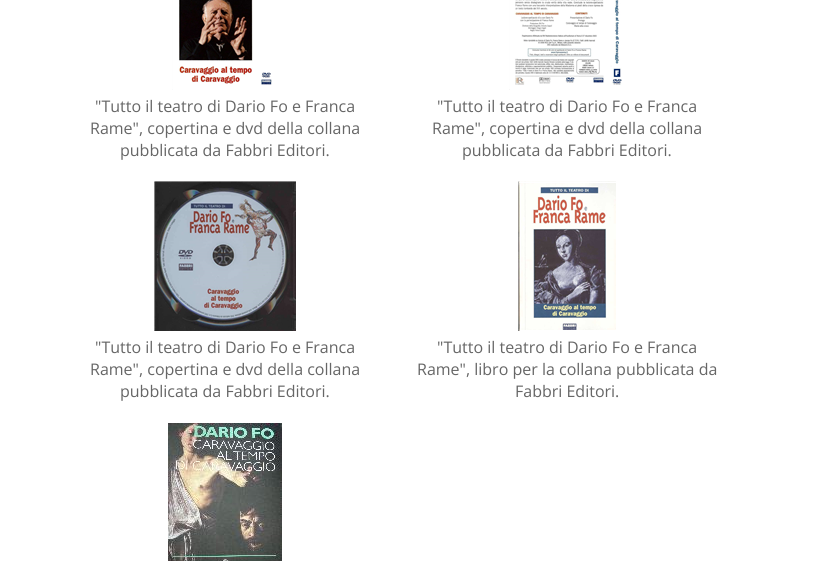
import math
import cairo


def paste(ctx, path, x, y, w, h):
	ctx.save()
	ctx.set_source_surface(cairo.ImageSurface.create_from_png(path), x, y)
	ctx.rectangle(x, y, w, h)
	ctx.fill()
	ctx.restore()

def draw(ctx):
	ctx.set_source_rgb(1, 1, 1)
	ctx.paint()
	paste(ctx, 'media/1.png', 172, 0, 100, 90)
	ctx.select_font_face('Open Sans')
	ctx.set_font_size(16)
	ctx.set_source_rgb(0.4, 0.4, 0.4)
	for x, y, s in [
		(95, 112, '"Tutto il teatro di Dario Fo e Franca'),
		(90, 134, 'Rame", copertina e dvd della collana'),
		(120, 156, 'pubblicata da Fabbri Editori.'),
	]:
		ctx.move_to(x, y)
		ctx.show_text(s)
	paste(ctx, 'media/2.png', 509, 0, 113, 90)
	for x, y, s in [
		(437, 112, '"Tutto il teatro di Dario Fo e Franca'),
		(432, 134, 'Rame", copertina e dvd della collana'),
		(462, 156, 'pubblicata da Fabbri Editori.'),
	]:
		ctx.move_to(x, y)
		ctx.show_text(s)
	paste(ctx, 'media/3.png', 154, 181, 142, 150)
	for x, y, s in [
		(95, 353, '"Tutto il teatro di Dario Fo e Franca'),
		(90, 375, 'Rame", copertina e dvd della collana'),
		(120, 397, 'pubblicata da Fabbri Editori.'),
	]:
		ctx.move_to(x, y)
		ctx.show_text(s)
	paste(ctx, 'media/4.png', 518, 181, 98, 150)
	for x, y, s in [
		(437, 353, '"Tutto il teatro di Dario Fo e Franca'),
		(417, 375, 'Rame", libro per la collana pubblicata da'),
		(515, 397, 'Fabbri Editori.'),
	]:
		ctx.move_to(x, y)
		ctx.show_text(s)
	paste(ctx, 'media/5.png', 168, 423, 114, 138)


surface = cairo.ImageSurface(cairo.FORMAT_RGB24, 828, 561)
ctx = cairo.Context(surface)
options = cairo.FontOptions()
options.set_hint_metrics(cairo.HINT_METRICS_OFF)
options.set_hint_style(cairo.HINT_STYLE_NONE)
ctx.set_font_options(options)
ctx.set_miter_limit(4)
draw(ctx)
surface.write_to_png('image.png')
